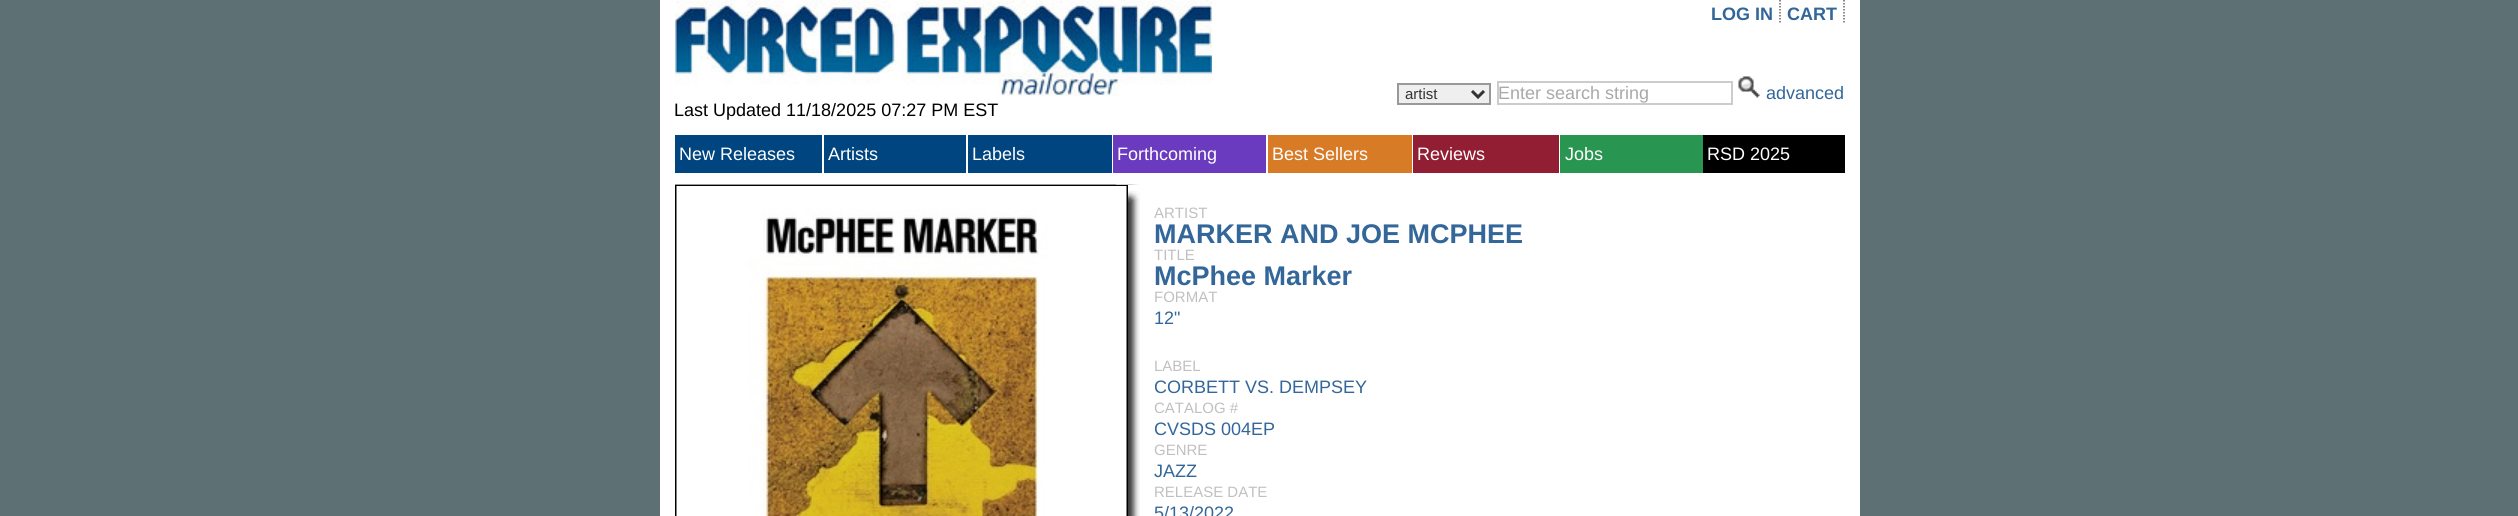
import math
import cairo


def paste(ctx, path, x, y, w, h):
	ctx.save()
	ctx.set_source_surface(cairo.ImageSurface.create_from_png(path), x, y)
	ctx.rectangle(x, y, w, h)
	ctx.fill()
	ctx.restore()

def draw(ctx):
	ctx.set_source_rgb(0.365, 0.439, 0.451)
	ctx.paint()
	ctx.set_source_rgb(1, 1, 1)
	ctx.rectangle(660, 0, 1200, 516)
	ctx.fill()
	ctx.new_path()
	ctx.move_to(1780, 0)
	ctx.line_to(1780, 24)
	ctx.set_source_rgb(0.4, 0.4, 0.4)
	ctx.set_line_width(1.5)
	ctx.set_dash([1.5, 1.5])
	ctx.stroke()
	ctx.select_font_face('Liberation Sans', cairo.FONT_SLANT_NORMAL, cairo.FONT_WEIGHT_BOLD)
	ctx.set_font_size(18)
	ctx.set_source_rgb(0.2, 0.4, 0.6)
	ctx.move_to(1711, 20)
	ctx.show_text('LOG IN')
	ctx.new_path()
	ctx.move_to(1844, 0)
	ctx.line_to(1844, 24)
	ctx.set_source_rgb(0.4, 0.4, 0.4)
	ctx.stroke()
	ctx.set_source_rgb(0.2, 0.4, 0.6)
	ctx.move_to(1787, 20)
	ctx.show_text('CART')
	ctx.set_source_rgb(0.937, 0.937, 0.937)
	ctx.rectangle(1398, 84, 92, 20)
	ctx.fill_preserve()
	ctx.set_source_rgb(0.6, 0.6, 0.6)
	ctx.set_line_width(2)
	ctx.set_dash([])
	ctx.stroke()
	ctx.new_path()
	ctx.move_to(1472, 91)
	ctx.line_to(1478, 97)
	ctx.line_to(1484, 91)
	ctx.set_source_rgb(0.2, 0.2, 0.2)
	ctx.set_line_width(3)
	ctx.stroke()
	ctx.select_font_face('Liberation Sans')
	ctx.set_font_size(15)
	ctx.move_to(1405, 99)
	ctx.show_text('artist')
	ctx.rectangle(1498, 82, 234, 22)
	ctx.set_source_rgb(0.8, 0.8, 0.8)
	ctx.set_line_width(2)
	ctx.stroke()
	ctx.set_font_size(18)
	ctx.set_source_rgb(0.663, 0.663, 0.663)
	ctx.move_to(1498, 99)
	ctx.show_text('Enter search string')
	paste(ctx, 'media/1.png', 1738, 76, 22, 22)
	ctx.set_source_rgb(0.2, 0.4, 0.6)
	ctx.move_to(1766, 99)
	ctx.show_text('advanced')
	paste(ctx, 'media/2.png', 675, 0, 537, 96)
	ctx.set_source_rgb(0, 0, 0)
	ctx.move_to(674, 116)
	ctx.show_text('Last Updated 11/18/2025 07:27 PM EST')
	ctx.set_source_rgb(0, 0.271, 0.502)
	ctx.rectangle(675, 135, 147, 38)
	ctx.fill()
	ctx.set_source_rgb(1, 1, 1)
	ctx.move_to(679, 160)
	ctx.show_text('New Releases')
	ctx.set_source_rgb(0, 0.271, 0.502)
	ctx.rectangle(824, 135, 142, 38)
	ctx.fill()
	ctx.set_source_rgb(1, 1, 1)
	ctx.move_to(828, 160)
	ctx.show_text('Artists')
	ctx.set_source_rgb(0, 0.271, 0.502)
	ctx.rectangle(968, 135, 144, 38)
	ctx.fill()
	ctx.set_source_rgb(1, 1, 1)
	ctx.move_to(972, 160)
	ctx.show_text('Labels')
	ctx.set_source_rgb(0.42, 0.231, 0.749)
	ctx.rectangle(1113, 135, 153, 38)
	ctx.fill()
	ctx.set_source_rgb(1, 1, 1)
	ctx.move_to(1117, 160)
	ctx.show_text('Forthcoming')
	ctx.set_source_rgb(0.847, 0.482, 0.153)
	ctx.rectangle(1268, 135, 144, 38)
	ctx.fill()
	ctx.set_source_rgb(1, 1, 1)
	ctx.move_to(1272, 160)
	ctx.show_text('Best Sellers')
	ctx.set_source_rgb(0.569, 0.118, 0.196)
	ctx.rectangle(1413, 135, 146, 38)
	ctx.fill()
	ctx.set_source_rgb(1, 1, 1)
	ctx.move_to(1417, 160)
	ctx.show_text('Reviews')
	ctx.set_source_rgb(0.157, 0.584, 0.318)
	ctx.rectangle(1560, 135, 143, 38)
	ctx.fill()
	ctx.set_source_rgb(1, 1, 1)
	ctx.move_to(1565, 160)
	ctx.show_text('Jobs')
	ctx.set_source_rgb(0, 0, 0)
	ctx.rectangle(1703, 135, 142, 38)
	ctx.fill()
	ctx.set_source_rgb(1, 1, 1)
	ctx.move_to(1707, 160)
	ctx.show_text('RSD 2025')
	paste(ctx, 'media/3.png', 675, 184, 465, 332)
	paste(ctx, 'media/4.png', 1116, 184, 24, 19)
	ctx.rectangle(676, 186, 451, 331)
	ctx.set_source_rgb(0, 0, 0)
	ctx.stroke()
	paste(ctx, 'media/5.png', 676, 186, 451, 330)
	ctx.set_font_size(15)
	ctx.set_source_rgb(0.753, 0.753, 0.753)
	ctx.move_to(1154, 218)
	ctx.show_text('ARTIST')
	ctx.select_font_face('Liberation Sans', cairo.FONT_SLANT_NORMAL, cairo.FONT_WEIGHT_BOLD)
	ctx.set_font_size(27)
	ctx.set_source_rgb(0.2, 0.4, 0.6)
	ctx.move_to(1154, 243)
	ctx.show_text('MARKER AND JOE MCPHEE')
	ctx.select_font_face('Liberation Sans')
	ctx.set_font_size(15)
	ctx.set_source_rgb(0.753, 0.753, 0.753)
	ctx.move_to(1154, 260)
	ctx.show_text('TITLE')
	ctx.select_font_face('Liberation Sans', cairo.FONT_SLANT_NORMAL, cairo.FONT_WEIGHT_BOLD)
	ctx.set_font_size(27)
	ctx.set_source_rgb(0.2, 0.4, 0.6)
	ctx.move_to(1154, 285)
	ctx.show_text('McPhee Marker')
	ctx.select_font_face('Liberation Sans')
	ctx.set_font_size(15)
	ctx.set_source_rgb(0.753, 0.753, 0.753)
	ctx.move_to(1154, 302)
	ctx.show_text('FORMAT')
	ctx.set_font_size(18)
	ctx.set_source_rgb(0.2, 0.4, 0.6)
	ctx.move_to(1154, 324)
	ctx.show_text('12"')
	ctx.set_font_size(15)
	ctx.set_source_rgb(0.753, 0.753, 0.753)
	ctx.move_to(1154, 371)
	ctx.show_text('LABEL')
	ctx.set_font_size(18)
	ctx.set_source_rgb(0.2, 0.4, 0.6)
	ctx.move_to(1154, 393)
	ctx.show_text('CORBETT VS. DEMPSEY')
	ctx.set_font_size(15)
	ctx.set_source_rgb(0.753, 0.753, 0.753)
	ctx.move_to(1154, 413)
	ctx.show_text('CATALOG #')
	ctx.set_font_size(18)
	ctx.set_source_rgb(0.2, 0.4, 0.6)
	ctx.move_to(1154, 435)
	ctx.show_text('CVSDS 004EP')
	ctx.set_font_size(15)
	ctx.set_source_rgb(0.753, 0.753, 0.753)
	ctx.move_to(1154, 455)
	ctx.show_text('GENRE')
	ctx.set_font_size(18)
	ctx.set_source_rgb(0.2, 0.4, 0.6)
	ctx.move_to(1154, 477)
	ctx.show_text('JAZZ')
	ctx.set_font_size(15)
	ctx.set_source_rgb(0.753, 0.753, 0.753)
	ctx.move_to(1154, 497)
	ctx.show_text('RELEASE DATE')
	ctx.set_font_size(18)
	ctx.set_source_rgb(0.2, 0.4, 0.6)
	ctx.move_to(1154, 519)
	ctx.show_text('5/13/2022')


surface = cairo.ImageSurface(cairo.FORMAT_RGB24, 2518, 516)
ctx = cairo.Context(surface)
options = cairo.FontOptions()
options.set_hint_metrics(cairo.HINT_METRICS_OFF)
options.set_hint_style(cairo.HINT_STYLE_NONE)
ctx.set_font_options(options)
ctx.set_miter_limit(4)
draw(ctx)
surface.write_to_png('image.png')
